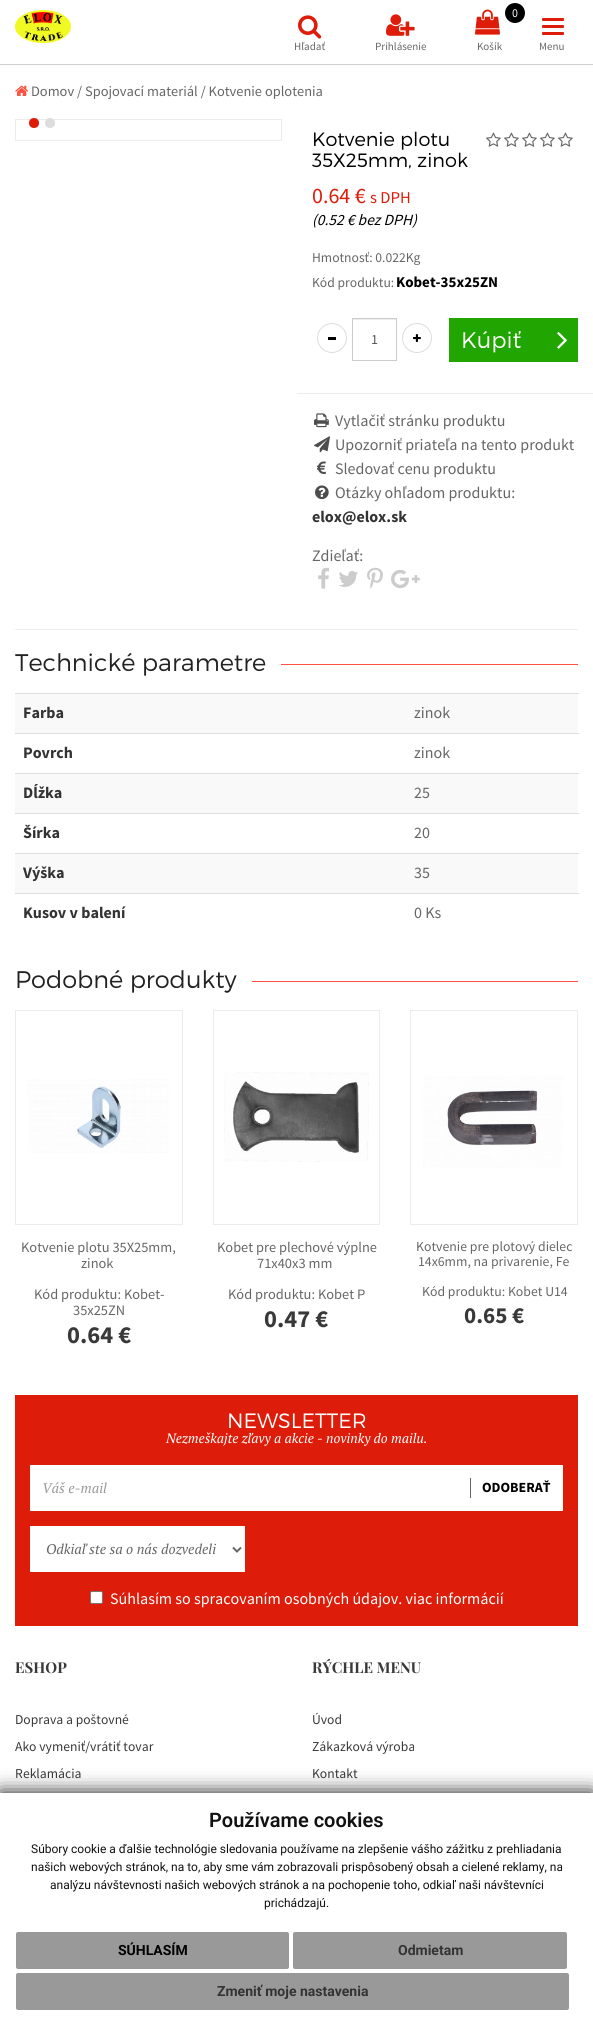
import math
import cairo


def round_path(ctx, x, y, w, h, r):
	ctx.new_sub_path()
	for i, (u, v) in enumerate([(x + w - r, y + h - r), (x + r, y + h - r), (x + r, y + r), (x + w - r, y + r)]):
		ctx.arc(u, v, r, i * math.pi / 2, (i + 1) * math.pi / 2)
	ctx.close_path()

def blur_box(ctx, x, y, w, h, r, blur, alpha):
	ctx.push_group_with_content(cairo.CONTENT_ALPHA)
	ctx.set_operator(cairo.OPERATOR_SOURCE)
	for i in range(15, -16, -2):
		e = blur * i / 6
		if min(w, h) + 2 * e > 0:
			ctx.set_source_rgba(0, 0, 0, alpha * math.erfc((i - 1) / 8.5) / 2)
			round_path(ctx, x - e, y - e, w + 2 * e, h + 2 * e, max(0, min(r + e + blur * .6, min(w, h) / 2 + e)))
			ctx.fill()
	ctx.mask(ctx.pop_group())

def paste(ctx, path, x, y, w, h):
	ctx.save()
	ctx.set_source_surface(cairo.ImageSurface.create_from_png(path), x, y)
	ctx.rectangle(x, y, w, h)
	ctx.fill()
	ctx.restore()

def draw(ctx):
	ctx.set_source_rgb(1, 1, 1)
	ctx.paint()
	ctx.set_source_rgb(0.812, 0.812, 0.812)
	ctx.rectangle(0, 64, 593, 1)
	ctx.fill()
	paste(ctx, 'media/1.png', 15, 10, 56, 33)
	paste(ctx, 'media/2.png', 298, 15, 24, 24)
	ctx.select_font_face('Source Sans Pro')
	ctx.set_font_size(11)
	ctx.set_source_rgb(0.4, 0.4, 0.4)
	ctx.move_to(294, 50)
	ctx.show_text('Hľadať')
	paste(ctx, 'media/3.png', 386, 14, 29, 22)
	ctx.move_to(375, 50)
	ctx.show_text('Prihlásenie')
	paste(ctx, 'media/4.png', 475, 9, 25, 26)
	ctx.set_source_rgb(0, 0, 0)
	ctx.arc(515, 13, 10, 0, 2 * math.pi)
	ctx.fill()
	ctx.set_font_size(12)
	ctx.set_source_rgb(1, 1, 1)
	ctx.move_to(512, 17)
	ctx.show_text('0')
	ctx.set_font_size(11)
	ctx.set_source_rgb(0.4, 0.4, 0.4)
	ctx.move_to(477, 50)
	ctx.show_text('Košík')
	ctx.set_source_rgb(0.867, 0.114, 0.039)
	round_path(ctx, 542, 18, 22, 3, 1)
	ctx.fill()
	round_path(ctx, 542, 25, 22, 3, 1)
	ctx.fill()
	round_path(ctx, 542, 32, 22, 3, 1)
	ctx.fill()
	ctx.set_source_rgb(0.4, 0.4, 0.4)
	ctx.move_to(539, 50)
	ctx.show_text('Menu')
	paste(ctx, 'media/5.png', 15, 85, 14, 11)
	ctx.set_font_size(14.4)
	ctx.move_to(31, 96)
	ctx.show_text('Domov / Spojovací materiál / Kotvenie oplotenia')
	ctx.rectangle(15.5, 119.5, 266, 21)
	ctx.set_source_rgb(0.925, 0.925, 0.925)
	ctx.set_line_width(1)
	ctx.stroke()
	ctx.set_source_rgb(0.867, 0.114, 0.039)
	ctx.arc(34, 123, 5, 0, 2 * math.pi)
	ctx.fill()
	ctx.set_source_rgb(0.867, 0.867, 0.867)
	ctx.arc(50, 123, 5, 0, 2 * math.pi)
	ctx.fill()
	ctx.select_font_face('Montserrat Light')
	ctx.set_font_size(19.25)
	ctx.set_source_rgb(0, 0, 0)
	ctx.move_to(312, 146)
	ctx.show_text('Kotvenie plotu')
	ctx.move_to(312, 167)
	ctx.show_text('35X25mm, zinok')
	ctx.select_font_face('Source Sans Pro')
	ctx.set_font_size(22)
	ctx.set_source_rgb(0.867, 0.114, 0.039)
	ctx.move_to(312, 203)
	ctx.show_text('0.64 €')
	ctx.set_font_size(16.5)
	ctx.move_to(370, 203)
	ctx.show_text('s DPH')
	ctx.select_font_face('Source Sans Pro', cairo.FONT_SLANT_ITALIC)
	ctx.set_font_size(15.5)
	ctx.set_source_rgb(0, 0, 0)
	ctx.move_to(312, 225)
	ctx.show_text('(0.52 € bez DPH)')
	paste(ctx, 'media/6.png', 486, 132, 15, 15)
	paste(ctx, 'media/6.png', 504, 132, 15, 15)
	paste(ctx, 'media/6.png', 522, 132, 15, 15)
	paste(ctx, 'media/6.png', 540, 132, 15, 15)
	paste(ctx, 'media/6.png', 558, 132, 15, 15)
	ctx.select_font_face('Source Sans Pro')
	ctx.set_font_size(13.6)
	ctx.set_source_rgb(0.4, 0.4, 0.4)
	ctx.move_to(312, 262)
	ctx.show_text('Hmotnosť: 0.022Kg')
	ctx.move_to(312, 287)
	ctx.show_text('Kód produktu:')
	ctx.select_font_face('Source Sans Pro', cairo.FONT_SLANT_NORMAL, cairo.FONT_WEIGHT_BOLD)
	ctx.set_font_size(15)
	ctx.set_source_rgb(0, 0, 0)
	ctx.move_to(396, 287)
	ctx.show_text('Kobet-35x25ZN')
	ctx.new_path()
	ctx.arc(332, 338, 14.5, 0, 2 * math.pi)
	ctx.set_source_rgb(0.867, 0.867, 0.867)
	ctx.stroke()
	ctx.set_source_rgb(0, 0, 0)
	ctx.rectangle(328, 337, 8, 3)
	ctx.fill()
	ctx.set_source_rgb(0.925, 0.925, 0.925)
	ctx.rectangle(353, 319, 43, 1)
	ctx.fill()
	ctx.rectangle(352.5, 318.5, 44, 42)
	ctx.set_source_rgb(0.8, 0.8, 0.8)
	ctx.stroke()
	ctx.select_font_face('Source Sans Pro')
	ctx.set_font_size(14)
	ctx.set_source_rgb(0.333, 0.333, 0.333)
	ctx.move_to(371, 344)
	ctx.show_text('1')
	ctx.new_path()
	ctx.arc(417, 338, 14.5, 0, 2 * math.pi)
	ctx.set_source_rgb(0.867, 0.867, 0.867)
	ctx.stroke()
	paste(ctx, 'media/7.png', 413, 334, 8, 8)
	ctx.set_source_rgb(0.129, 0.647, 0)
	ctx.rectangle(449, 318, 129, 44)
	ctx.fill()
	ctx.select_font_face('Montserrat Light')
	ctx.set_font_size(22.5)
	ctx.set_source_rgb(1, 1, 1)
	ctx.move_to(461, 348)
	ctx.show_text('Kúpiť')
	paste(ctx, 'media/8.png', 557, 332, 10, 17)
	ctx.set_source_rgb(0.925, 0.925, 0.925)
	ctx.rectangle(297, 393, 296, 1)
	ctx.fill()
	paste(ctx, 'media/9.png', 314, 413, 15, 15)
	ctx.select_font_face('Source Sans Pro')
	ctx.set_font_size(16)
	ctx.set_source_rgb(0.4, 0.4, 0.4)
	ctx.move_to(335, 426)
	ctx.show_text('Vytlačiť stránku produktu')
	paste(ctx, 'media/10.png', 314, 436, 16, 17)
	ctx.move_to(335, 450)
	ctx.show_text('Upozorniť priateľa na tento produkt')
	paste(ctx, 'media/11.png', 317, 461, 9, 13)
	ctx.move_to(335, 474)
	ctx.show_text('Sledovať cenu produktu')
	paste(ctx, 'media/12.png', 315, 485, 14, 15)
	ctx.move_to(335, 498)
	ctx.show_text('Otázky ohľadom produktu:')
	ctx.select_font_face('Source Sans Pro', cairo.FONT_SLANT_NORMAL, cairo.FONT_WEIGHT_BOLD)
	ctx.set_source_rgb(0.2, 0.2, 0.2)
	ctx.move_to(312, 522)
	ctx.show_text('elox@elox.sk')
	ctx.select_font_face('Source Sans Pro')
	ctx.set_source_rgb(0.4, 0.4, 0.4)
	ctx.move_to(312, 561)
	ctx.show_text('Zdieľať:')
	paste(ctx, 'media/13.png', 318, 567, 11, 22)
	paste(ctx, 'media/14.png', 339, 571, 19, 16)
	paste(ctx, 'media/15.png', 367, 567, 16, 22)
	paste(ctx, 'media/16.png', 391, 569, 29, 20)
	ctx.set_source_rgb(0.933, 0.933, 0.933)
	ctx.rectangle(15, 629, 563, 1)
	ctx.fill()
	ctx.select_font_face('Montserrat Light')
	ctx.set_font_size(24)
	ctx.set_source_rgb(0.133, 0.133, 0.133)
	ctx.move_to(15, 671)
	ctx.show_text('Technické parametre')
	ctx.set_source_rgb(1, 0.318, 0.251)
	ctx.rectangle(281, 664, 297, 1)
	ctx.fill()
	ctx.set_source_rgb(0.976, 0.976, 0.976)
	ctx.rectangle(15, 694, 563, 39)
	ctx.fill()
	ctx.select_font_face('Source Sans Pro', cairo.FONT_SLANT_NORMAL, cairo.FONT_WEIGHT_BOLD)
	ctx.set_font_size(16)
	ctx.set_source_rgb(0.2, 0.2, 0.2)
	ctx.move_to(23, 718)
	ctx.show_text('Farba')
	ctx.set_source_rgb(0.867, 0.867, 0.867)
	ctx.rectangle(15, 693, 564, 1)
	ctx.fill()
	ctx.select_font_face('Source Sans Pro')
	ctx.set_source_rgb(0.4, 0.4, 0.4)
	ctx.move_to(414, 718)
	ctx.show_text('zinok')
	ctx.select_font_face('Source Sans Pro', cairo.FONT_SLANT_NORMAL, cairo.FONT_WEIGHT_BOLD)
	ctx.set_source_rgb(0.2, 0.2, 0.2)
	ctx.move_to(23, 758)
	ctx.show_text('Povrch')
	ctx.set_source_rgb(0.867, 0.867, 0.867)
	ctx.rectangle(15, 733, 564, 1)
	ctx.fill()
	ctx.select_font_face('Source Sans Pro')
	ctx.set_source_rgb(0.4, 0.4, 0.4)
	ctx.move_to(414, 758)
	ctx.show_text('zinok')
	ctx.set_source_rgb(0.976, 0.976, 0.976)
	ctx.rectangle(15, 774, 563, 39)
	ctx.fill()
	ctx.select_font_face('Source Sans Pro', cairo.FONT_SLANT_NORMAL, cairo.FONT_WEIGHT_BOLD)
	ctx.set_source_rgb(0.2, 0.2, 0.2)
	ctx.move_to(23, 798)
	ctx.show_text('Dĺžka')
	ctx.set_source_rgb(0.867, 0.867, 0.867)
	ctx.rectangle(15, 773, 564, 1)
	ctx.fill()
	ctx.select_font_face('Source Sans Pro')
	ctx.set_source_rgb(0.4, 0.4, 0.4)
	ctx.move_to(414, 798)
	ctx.show_text('25')
	ctx.select_font_face('Source Sans Pro', cairo.FONT_SLANT_NORMAL, cairo.FONT_WEIGHT_BOLD)
	ctx.set_source_rgb(0.2, 0.2, 0.2)
	ctx.move_to(23, 838)
	ctx.show_text('Šírka')
	ctx.set_source_rgb(0.867, 0.867, 0.867)
	ctx.rectangle(15, 813, 564, 1)
	ctx.fill()
	ctx.select_font_face('Source Sans Pro')
	ctx.set_source_rgb(0.4, 0.4, 0.4)
	ctx.move_to(414, 838)
	ctx.show_text('20')
	ctx.set_source_rgb(0.976, 0.976, 0.976)
	ctx.rectangle(15, 854, 563, 39)
	ctx.fill()
	ctx.select_font_face('Source Sans Pro', cairo.FONT_SLANT_NORMAL, cairo.FONT_WEIGHT_BOLD)
	ctx.set_source_rgb(0.2, 0.2, 0.2)
	ctx.move_to(23, 878)
	ctx.show_text('Výška')
	ctx.set_source_rgb(0.867, 0.867, 0.867)
	ctx.rectangle(15, 853, 564, 1)
	ctx.fill()
	ctx.select_font_face('Source Sans Pro')
	ctx.set_source_rgb(0.4, 0.4, 0.4)
	ctx.move_to(414, 878)
	ctx.show_text('35')
	ctx.select_font_face('Source Sans Pro', cairo.FONT_SLANT_NORMAL, cairo.FONT_WEIGHT_BOLD)
	ctx.set_source_rgb(0.2, 0.2, 0.2)
	ctx.move_to(23, 918)
	ctx.show_text('Kusov v balení')
	ctx.set_source_rgb(0.867, 0.867, 0.867)
	ctx.rectangle(15, 893, 564, 1)
	ctx.fill()
	ctx.select_font_face('Source Sans Pro')
	ctx.set_source_rgb(0.4, 0.4, 0.4)
	ctx.move_to(414, 918)
	ctx.show_text('0 Ks')
	ctx.select_font_face('Montserrat Light')
	ctx.set_font_size(24)
	ctx.set_source_rgb(0.133, 0.133, 0.133)
	ctx.move_to(15, 988)
	ctx.show_text('Podobné produkty')
	ctx.set_source_rgb(1, 0.318, 0.251)
	ctx.rectangle(252, 981, 326, 1)
	ctx.fill()
	ctx.rectangle(15.5, 1010.5, 167, 214)
	ctx.set_source_rgb(0.925, 0.925, 0.925)
	ctx.stroke()
	paste(ctx, 'media/17.png', 27, 1079, 143, 74)
	ctx.select_font_face('Source Sans Pro')
	ctx.set_font_size(14.4)
	ctx.set_source_rgb(0.4, 0.4, 0.4)
	for x, y, s in [
		(21, 1252, 'Kotvenie plotu 35X25mm,'),
		(81, 1268, 'zinok'),
		(34, 1299, 'Kód produktu: Kobet-'),
		(73, 1315, '35x25ZN'),
	]:
		ctx.move_to(x, y)
		ctx.show_text(s)
	ctx.select_font_face('Source Sans Pro', cairo.FONT_SLANT_NORMAL, cairo.FONT_WEIGHT_BOLD)
	ctx.set_font_size(24.5)
	ctx.set_source_rgb(0.224, 0.224, 0.227)
	ctx.move_to(67, 1343)
	ctx.show_text('0.64 €')
	ctx.rectangle(213.5, 1010.5, 166, 214)
	ctx.set_source_rgb(0.925, 0.925, 0.925)
	ctx.stroke()
	paste(ctx, 'media/18.png', 224, 1072, 145, 90)
	ctx.select_font_face('Source Sans Pro')
	ctx.set_font_size(14.4)
	ctx.set_source_rgb(0.4, 0.4, 0.4)
	for x, y, s in [
		(217, 1252, 'Kobet pre plechové výplne'),
		(257, 1268, '71x40x3 mm'),
		(228, 1299, 'Kód produktu: Kobet P'),
	]:
		ctx.move_to(x, y)
		ctx.show_text(s)
	ctx.select_font_face('Source Sans Pro', cairo.FONT_SLANT_NORMAL, cairo.FONT_WEIGHT_BOLD)
	ctx.set_font_size(24.5)
	ctx.set_source_rgb(0.224, 0.224, 0.227)
	ctx.move_to(264, 1327)
	ctx.show_text('0.47 €')
	ctx.rectangle(410.5, 1010.5, 167, 214)
	ctx.set_source_rgb(0.925, 0.925, 0.925)
	ctx.stroke()
	paste(ctx, 'media/19.png', 423, 1076, 140, 92)
	ctx.select_font_face('Source Sans Pro')
	ctx.set_font_size(13.75)
	ctx.set_source_rgb(0.4, 0.4, 0.4)
	for x, y, s in [
		(416, 1251, 'Kotvenie pre plotový dielec'),
		(418, 1266, '14x6mm, na privarenie, Fe'),
		(422, 1296, 'Kód produktu: Kobet U14'),
	]:
		ctx.move_to(x, y)
		ctx.show_text(s)
	ctx.select_font_face('Source Sans Pro', cairo.FONT_SLANT_NORMAL, cairo.FONT_WEIGHT_BOLD)
	ctx.set_font_size(23)
	ctx.set_source_rgb(0.224, 0.224, 0.227)
	ctx.move_to(464, 1323)
	ctx.show_text('0.65 €')
	ctx.set_source_rgb(0.867, 0.114, 0.039)
	ctx.rectangle(15, 1395, 563, 231)
	ctx.fill()
	ctx.select_font_face('Montserrat Light')
	ctx.set_font_size(20.75)
	ctx.set_source_rgb(1, 1, 1)
	ctx.move_to(227, 1428)
	ctx.show_text('NEWSLETTER')
	ctx.select_font_face('PT Serif', cairo.FONT_SLANT_ITALIC)
	ctx.set_font_size(13.5)
	ctx.move_to(166, 1443)
	ctx.show_text('Nezmeškajte zľavy a akcie - novinky do mailu.')
	ctx.rectangle(30, 1465, 533, 46)
	ctx.fill()
	ctx.set_font_size(14)
	ctx.set_source_rgb(0.6, 0.6, 0.6)
	ctx.move_to(42, 1493)
	ctx.show_text('Váš e-mail')
	ctx.set_source_rgb(0.4, 0.4, 0.4)
	ctx.rectangle(470, 1478, 1, 20)
	ctx.fill()
	ctx.select_font_face('Source Sans Pro', cairo.FONT_SLANT_NORMAL, cairo.FONT_WEIGHT_BOLD)
	ctx.set_source_rgb(0, 0, 0)
	ctx.move_to(482, 1492)
	ctx.show_text('ODOBERAŤ')
	ctx.set_source_rgb(1, 1, 1)
	ctx.rectangle(30, 1526, 215, 46)
	ctx.fill()
	ctx.new_path()
	ctx.move_to(233, 1547.5)
	ctx.line_to(237, 1551.5)
	ctx.line_to(241, 1547.5)
	ctx.set_source_rgb(0.4, 0.4, 0.4)
	ctx.set_line_width(2)
	ctx.stroke()
	ctx.select_font_face('PT Serif', cairo.FONT_SLANT_ITALIC)
	ctx.move_to(46, 1554)
	ctx.show_text('Odkiaľ ste sa o nás dozvedeli')
	ctx.set_source_rgb(1, 1, 1)
	round_path(ctx, 90.5, 1591.5, 12, 12, 1.5)
	ctx.fill_preserve()
	ctx.set_source_rgb(0.463, 0.463, 0.463)
	ctx.set_line_width(1)
	ctx.stroke()
	ctx.select_font_face('Source Sans Pro')
	ctx.set_font_size(16)
	ctx.set_source_rgb(1, 1, 1)
	ctx.move_to(110, 1604)
	ctx.show_text('Súhlasím so spracovaním osobných údajov. viac informácií')
	ctx.select_font_face('Playfair Display', cairo.FONT_SLANT_NORMAL, cairo.FONT_WEIGHT_BOLD)
	ctx.set_font_size(15)
	ctx.set_source_rgb(0.224, 0.224, 0.227)
	ctx.move_to(15, 1673)
	ctx.show_text('ESHOP')
	ctx.select_font_face('Source Sans Pro')
	ctx.set_font_size(13.6)
	for x, y, s in [
		(15, 1724, 'Doprava a poštovné'),
		(15, 1751, 'Ako vymeniť/vrátiť tovar'),
		(15, 1778, 'Reklamácia'),
	]:
		ctx.move_to(x, y)
		ctx.show_text(s)
	ctx.select_font_face('Playfair Display', cairo.FONT_SLANT_NORMAL, cairo.FONT_WEIGHT_BOLD)
	ctx.set_font_size(15)
	ctx.move_to(312, 1673)
	ctx.show_text('RÝCHLE MENU')
	ctx.select_font_face('Source Sans Pro')
	ctx.set_font_size(13.6)
	for x, y, s in [
		(312, 1724, 'Úvod'),
		(312, 1751, 'Zákazková výroba'),
		(312, 1778, 'Kontakt'),
	]:
		ctx.move_to(x, y)
		ctx.show_text(s)
	ctx.set_source_rgb(0.067, 0.067, 0.067)
	blur_box(ctx, 0, 1793, 593, 241, 0, 10, 1)
	ctx.set_source_rgb(1, 1, 1)
	ctx.rectangle(0, 1793, 593, 241)
	ctx.fill()
	ctx.select_font_face('Roboto SemiBold')
	ctx.set_font_size(20)
	ctx.set_source_rgb(0.067, 0.067, 0.067)
	ctx.move_to(209, 1827)
	ctx.show_text('Používame cookies')
	ctx.select_font_face('Roboto')
	ctx.set_font_size(12)
	for x, y, s in [
		(31, 1853, 'Súbory cookie a ďalšie technológie sledovania používame na zlepšenie vášho zážitku z prehliadania'),
		(31, 1871, 'našich webových stránok, na to, aby sme vám zobrazovali prispôsobený obsah a cielené reklamy, na'),
		(50, 1889, 'analýzu návštevnosti našich webových stránok a na pochopenie toho, odkiaľ naši návštevníci'),
		(264, 1907, 'prichádzajú.'),
	]:
		ctx.move_to(x, y)
		ctx.show_text(s)
	ctx.set_source_rgb(0.6, 0.6, 0.6)
	round_path(ctx, 16, 1932, 273, 37, 2)
	ctx.fill()
	ctx.select_font_face('Roboto', cairo.FONT_SLANT_NORMAL, cairo.FONT_WEIGHT_BOLD)
	ctx.set_font_size(14)
	ctx.set_source_rgb(0, 0, 0)
	ctx.move_to(118, 1955)
	ctx.show_text('SÚHLASÍM')
	ctx.set_source_rgb(0.6, 0.6, 0.6)
	round_path(ctx, 293, 1932, 274, 37, 2)
	ctx.fill()
	ctx.set_source_rgb(0.2, 0.2, 0.2)
	ctx.move_to(398, 1955)
	ctx.show_text('Odmietam')
	ctx.set_source_rgb(0.6, 0.6, 0.6)
	round_path(ctx, 16, 1973, 553, 37, 2)
	ctx.fill()
	ctx.set_source_rgb(0.2, 0.2, 0.2)
	ctx.move_to(217, 1996)
	ctx.show_text('Zmeniť moje nastavenia')


surface = cairo.ImageSurface(cairo.FORMAT_RGB24, 593, 2034)
ctx = cairo.Context(surface)
options = cairo.FontOptions()
options.set_hint_metrics(cairo.HINT_METRICS_OFF)
options.set_hint_style(cairo.HINT_STYLE_NONE)
ctx.set_font_options(options)
ctx.set_miter_limit(4)
draw(ctx)
surface.write_to_png('image.png')
